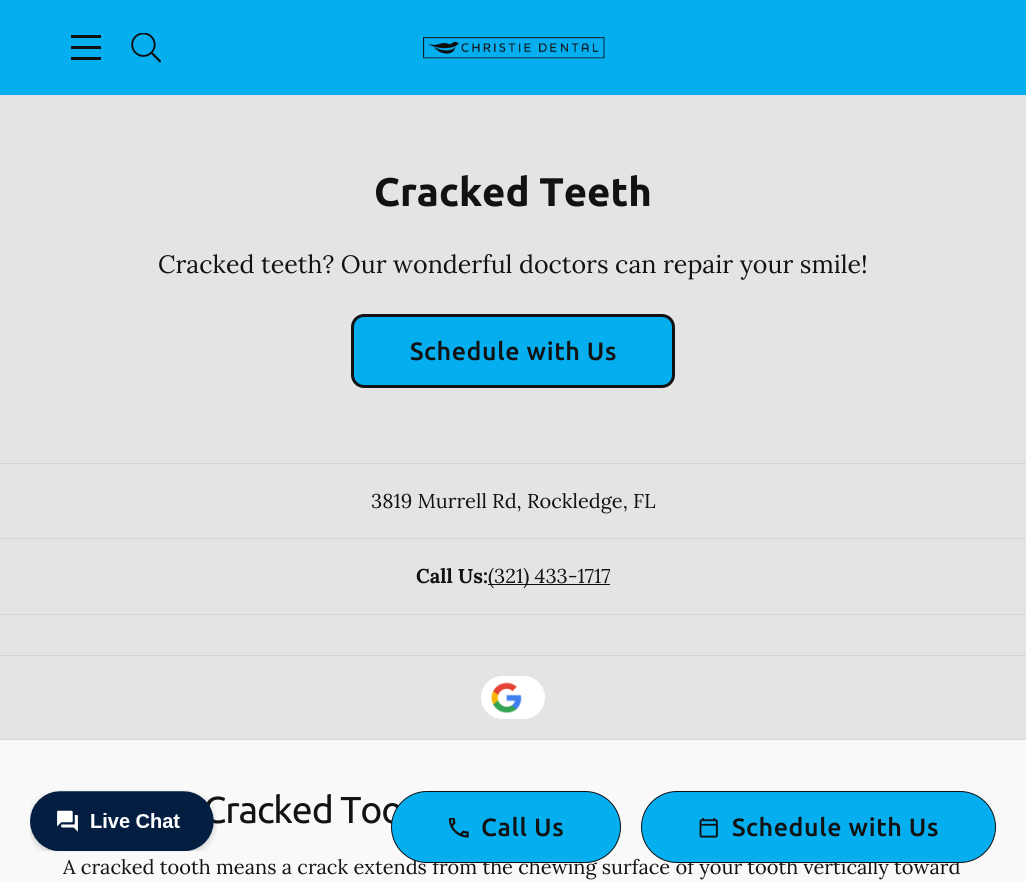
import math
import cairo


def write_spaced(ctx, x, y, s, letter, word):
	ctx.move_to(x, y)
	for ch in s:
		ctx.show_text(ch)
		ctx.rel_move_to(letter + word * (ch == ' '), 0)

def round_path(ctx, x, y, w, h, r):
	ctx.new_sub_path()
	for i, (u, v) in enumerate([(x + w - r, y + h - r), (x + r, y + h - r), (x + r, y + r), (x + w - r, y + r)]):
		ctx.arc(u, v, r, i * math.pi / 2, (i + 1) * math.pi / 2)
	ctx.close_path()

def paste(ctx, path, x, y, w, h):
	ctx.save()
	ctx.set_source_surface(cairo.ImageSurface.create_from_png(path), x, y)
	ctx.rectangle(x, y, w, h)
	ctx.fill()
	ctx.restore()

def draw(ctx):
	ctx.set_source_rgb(0.976, 0.976, 0.976)
	ctx.paint()
	ctx.set_source_rgb(0.016, 0.682, 0.937)
	ctx.rectangle(0, 0, 1026, 95)
	ctx.fill()
	ctx.set_source_rgb(0.059, 0.059, 0.059)
	ctx.rectangle(71, 35, 30, 3)
	ctx.rectangle(71, 46, 30, 3)
	ctx.rectangle(71, 57, 30, 3)
	ctx.fill()
	paste(ctx, 'media/1.png', 131, 33, 30, 30)
	paste(ctx, 'media/2.png', 423, 37, 182, 22)
	ctx.set_source_rgb(0.894, 0.894, 0.894)
	ctx.rectangle(0, 95, 1026, 368)
	ctx.fill()
	ctx.select_font_face('Ubuntu', cairo.FONT_SLANT_NORMAL, cairo.FONT_WEIGHT_BOLD)
	ctx.set_font_size(40)
	ctx.set_source_rgb(0.071, 0.071, 0.071)
	ctx.move_to(374, 206)
	ctx.show_text('Cracked Teeth')
	ctx.select_font_face('Lora')
	ctx.set_font_size(25)
	ctx.move_to(158, 273)
	ctx.show_text('Cracked teeth? Our wonderful doctors can repair your smile!')
	ctx.set_source_rgb(0.016, 0.682, 0.937)
	round_path(ctx, 352.5, 315.5, 321, 71, 11.5)
	ctx.fill_preserve()
	ctx.set_source_rgb(0.071, 0.071, 0.071)
	ctx.set_line_width(3)
	ctx.stroke()
	ctx.select_font_face('Ubuntu Medium')
	write_spaced(ctx, 410, 360, 'Schedule with Us', 0.6, 0)
	ctx.set_source_rgb(0.894, 0.894, 0.894)
	ctx.rectangle(0, 464, 1026, 275)
	ctx.fill()
	ctx.set_source_rgb(0.831, 0.831, 0.831)
	ctx.rectangle(0, 463, 1026, 1)
	ctx.rectangle(0, 739, 1026, 1)
	ctx.fill()
	ctx.select_font_face('Lora')
	ctx.set_font_size(20)
	ctx.set_source_rgb(0.071, 0.071, 0.071)
	ctx.move_to(371, 508)
	ctx.show_text('3819 Murrell Rd, Rockledge, FL')
	ctx.set_source_rgb(0.831, 0.831, 0.831)
	ctx.rectangle(0, 538, 1026, 1)
	ctx.fill()
	ctx.select_font_face('Lora', cairo.FONT_SLANT_NORMAL, cairo.FONT_WEIGHT_BOLD)
	ctx.set_source_rgb(0.071, 0.071, 0.071)
	ctx.move_to(416, 583)
	ctx.show_text('Call Us:')
	ctx.set_source_rgb(0.059, 0.059, 0.059)
	ctx.rectangle(488, 584, 122, 1)
	ctx.fill()
	ctx.select_font_face('Lora')
	ctx.set_source_rgb(0.071, 0.071, 0.071)
	ctx.move_to(488, 583)
	ctx.show_text('(321) 433-1717')
	ctx.set_source_rgb(0.831, 0.831, 0.831)
	ctx.rectangle(0, 614, 1026, 1)
	ctx.fill()
	ctx.rectangle(0, 655, 1026, 1)
	ctx.fill()
	ctx.set_source_rgb(1, 1, 1)
	round_path(ctx, 481, 676, 64, 43, 21.5)
	ctx.fill()
	paste(ctx, 'media/3.png', 491, 682, 31, 31)
	ctx.select_font_face('Ubuntu')
	ctx.set_font_size(37.5)
	ctx.set_source_rgb(0.071, 0.071, 0.071)
	write_spaced(ctx, 203, 823, 'Cracked Too', -1.1, 0)
	ctx.select_font_face('Lora')
	ctx.set_font_size(20)
	ctx.move_to(63, 874)
	ctx.show_text('A cracked tooth means a crack extends from the chewing surface of your tooth vertically toward')
	ctx.set_source_rgb(0.016, 0.682, 0.937)
	round_path(ctx, 391.5, 791.5, 229, 71, 35.5)
	ctx.fill_preserve()
	ctx.set_source_rgb(0.059, 0.059, 0.059)
	ctx.set_line_width(1)
	ctx.stroke()
	paste(ctx, 'media/4.png', 449, 818, 20, 20)
	ctx.select_font_face('Ubuntu Medium')
	ctx.set_font_size(25)
	ctx.set_source_rgb(0.071, 0.071, 0.071)
	write_spaced(ctx, 481, 836, 'Call Us', 0.6, 0)
	ctx.set_source_rgb(0.016, 0.682, 0.937)
	round_path(ctx, 641.5, 791.5, 354, 71, 35.5)
	ctx.fill_preserve()
	ctx.set_source_rgb(0.059, 0.059, 0.059)
	ctx.stroke()
	paste(ctx, 'media/5.png', 699, 818, 19, 20)
	ctx.set_source_rgb(0.071, 0.071, 0.071)
	write_spaced(ctx, 732, 836, 'Schedule with Us', 0.6, 0)
	paste(ctx, 'media/6.png', 30, 790, 187, 62)


surface = cairo.ImageSurface(cairo.FORMAT_RGB24, 1026, 881)
ctx = cairo.Context(surface)
options = cairo.FontOptions()
options.set_hint_metrics(cairo.HINT_METRICS_OFF)
options.set_hint_style(cairo.HINT_STYLE_NONE)
ctx.set_font_options(options)
ctx.set_miter_limit(4)
draw(ctx)
surface.write_to_png('image.png')
